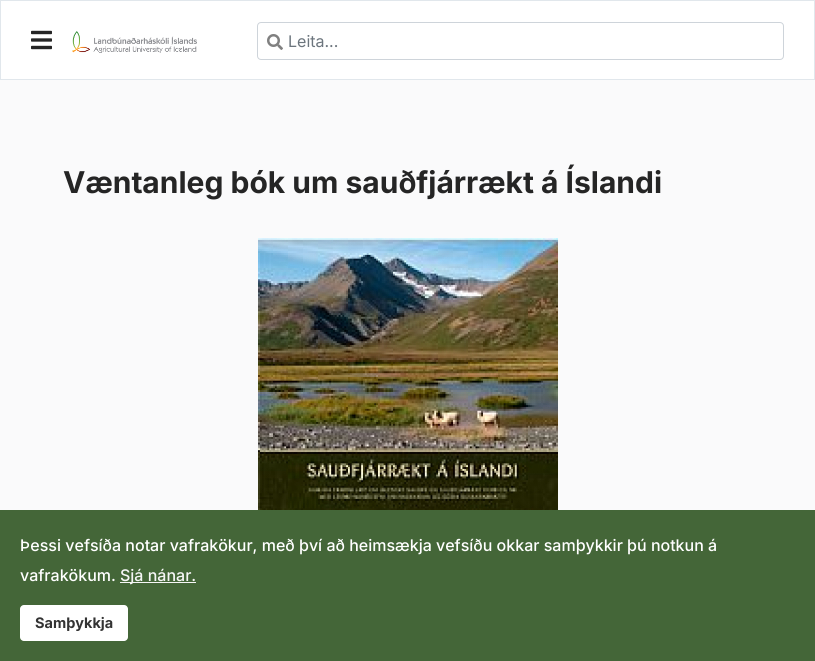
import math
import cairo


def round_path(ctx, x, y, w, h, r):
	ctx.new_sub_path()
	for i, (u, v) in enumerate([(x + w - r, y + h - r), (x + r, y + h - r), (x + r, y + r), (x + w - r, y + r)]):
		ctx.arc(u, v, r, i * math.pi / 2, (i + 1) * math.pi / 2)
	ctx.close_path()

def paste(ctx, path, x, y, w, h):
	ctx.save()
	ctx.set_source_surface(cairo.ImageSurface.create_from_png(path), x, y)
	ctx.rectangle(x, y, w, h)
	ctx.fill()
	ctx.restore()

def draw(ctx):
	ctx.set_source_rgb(1, 1, 1)
	ctx.paint()
	ctx.rectangle(0.5, 0.5, 814, 79)
	ctx.set_source_rgb(0.882, 0.906, 0.925)
	ctx.set_line_width(1)
	ctx.stroke()
	paste(ctx, 'media/1.png', 31, 30, 21, 20)
	paste(ctx, 'media/2.png', 72, 31, 125, 22)
	round_path(ctx, 257.5, 22.5, 526, 37, 3.5)
	ctx.set_source_rgb(0.808, 0.831, 0.855)
	ctx.stroke()
	paste(ctx, 'media/3.png', 267, 34, 16, 16)
	ctx.select_font_face('Inter')
	ctx.set_font_size(16)
	ctx.set_source_rgb(0.424, 0.459, 0.49)
	ctx.move_to(288, 47)
	ctx.show_text('Leita...')
	ctx.set_source_rgb(0.98, 0.98, 0.984)
	ctx.rectangle(0, 80, 815, 430)
	ctx.fill()
	ctx.select_font_face('Inter', cairo.FONT_SLANT_NORMAL, cairo.FONT_WEIGHT_BOLD)
	ctx.set_font_size(30)
	ctx.set_source_rgb(0.145, 0.145, 0.145)
	ctx.move_to(63, 193)
	ctx.show_text('Væntanleg bók um sauðfjárrækt á Íslandi')
	paste(ctx, 'media/4.png', 258, 238, 300, 272)
	ctx.set_source_rgb(0.267, 0.4, 0.22)
	ctx.rectangle(0, 510, 815, 151)
	ctx.fill()
	ctx.select_font_face('Inter Medium')
	ctx.set_font_size(16)
	ctx.set_source_rgb(1, 1, 1)
	ctx.move_to(20, 551)
	ctx.show_text('Þessi vefsíða notar vafrakökur, með því að heimsækja vefsíðu okkar samþykkir þú notkun á')
	ctx.move_to(20, 581)
	ctx.show_text('vafrakökum.')
	ctx.set_source_rgb(0.961, 0.961, 0.961)
	ctx.rectangle(120, 582, 76, 1)
	ctx.fill()
	ctx.move_to(120, 581)
	ctx.show_text('Sjá nánar.')
	ctx.set_source_rgb(1, 1, 1)
	round_path(ctx, 20, 605, 108, 36, 4)
	ctx.fill()
	ctx.select_font_face('Inter', cairo.FONT_SLANT_NORMAL, cairo.FONT_WEIGHT_BOLD)
	ctx.set_font_size(14.5)
	ctx.set_source_rgb(0.2, 0.2, 0.2)
	ctx.move_to(35, 628)
	ctx.show_text('Samþykkja')


surface = cairo.ImageSurface(cairo.FORMAT_RGB24, 815, 661)
ctx = cairo.Context(surface)
options = cairo.FontOptions()
options.set_hint_metrics(cairo.HINT_METRICS_OFF)
options.set_hint_style(cairo.HINT_STYLE_NONE)
ctx.set_font_options(options)
ctx.set_miter_limit(4)
draw(ctx)
surface.write_to_png('image.png')
